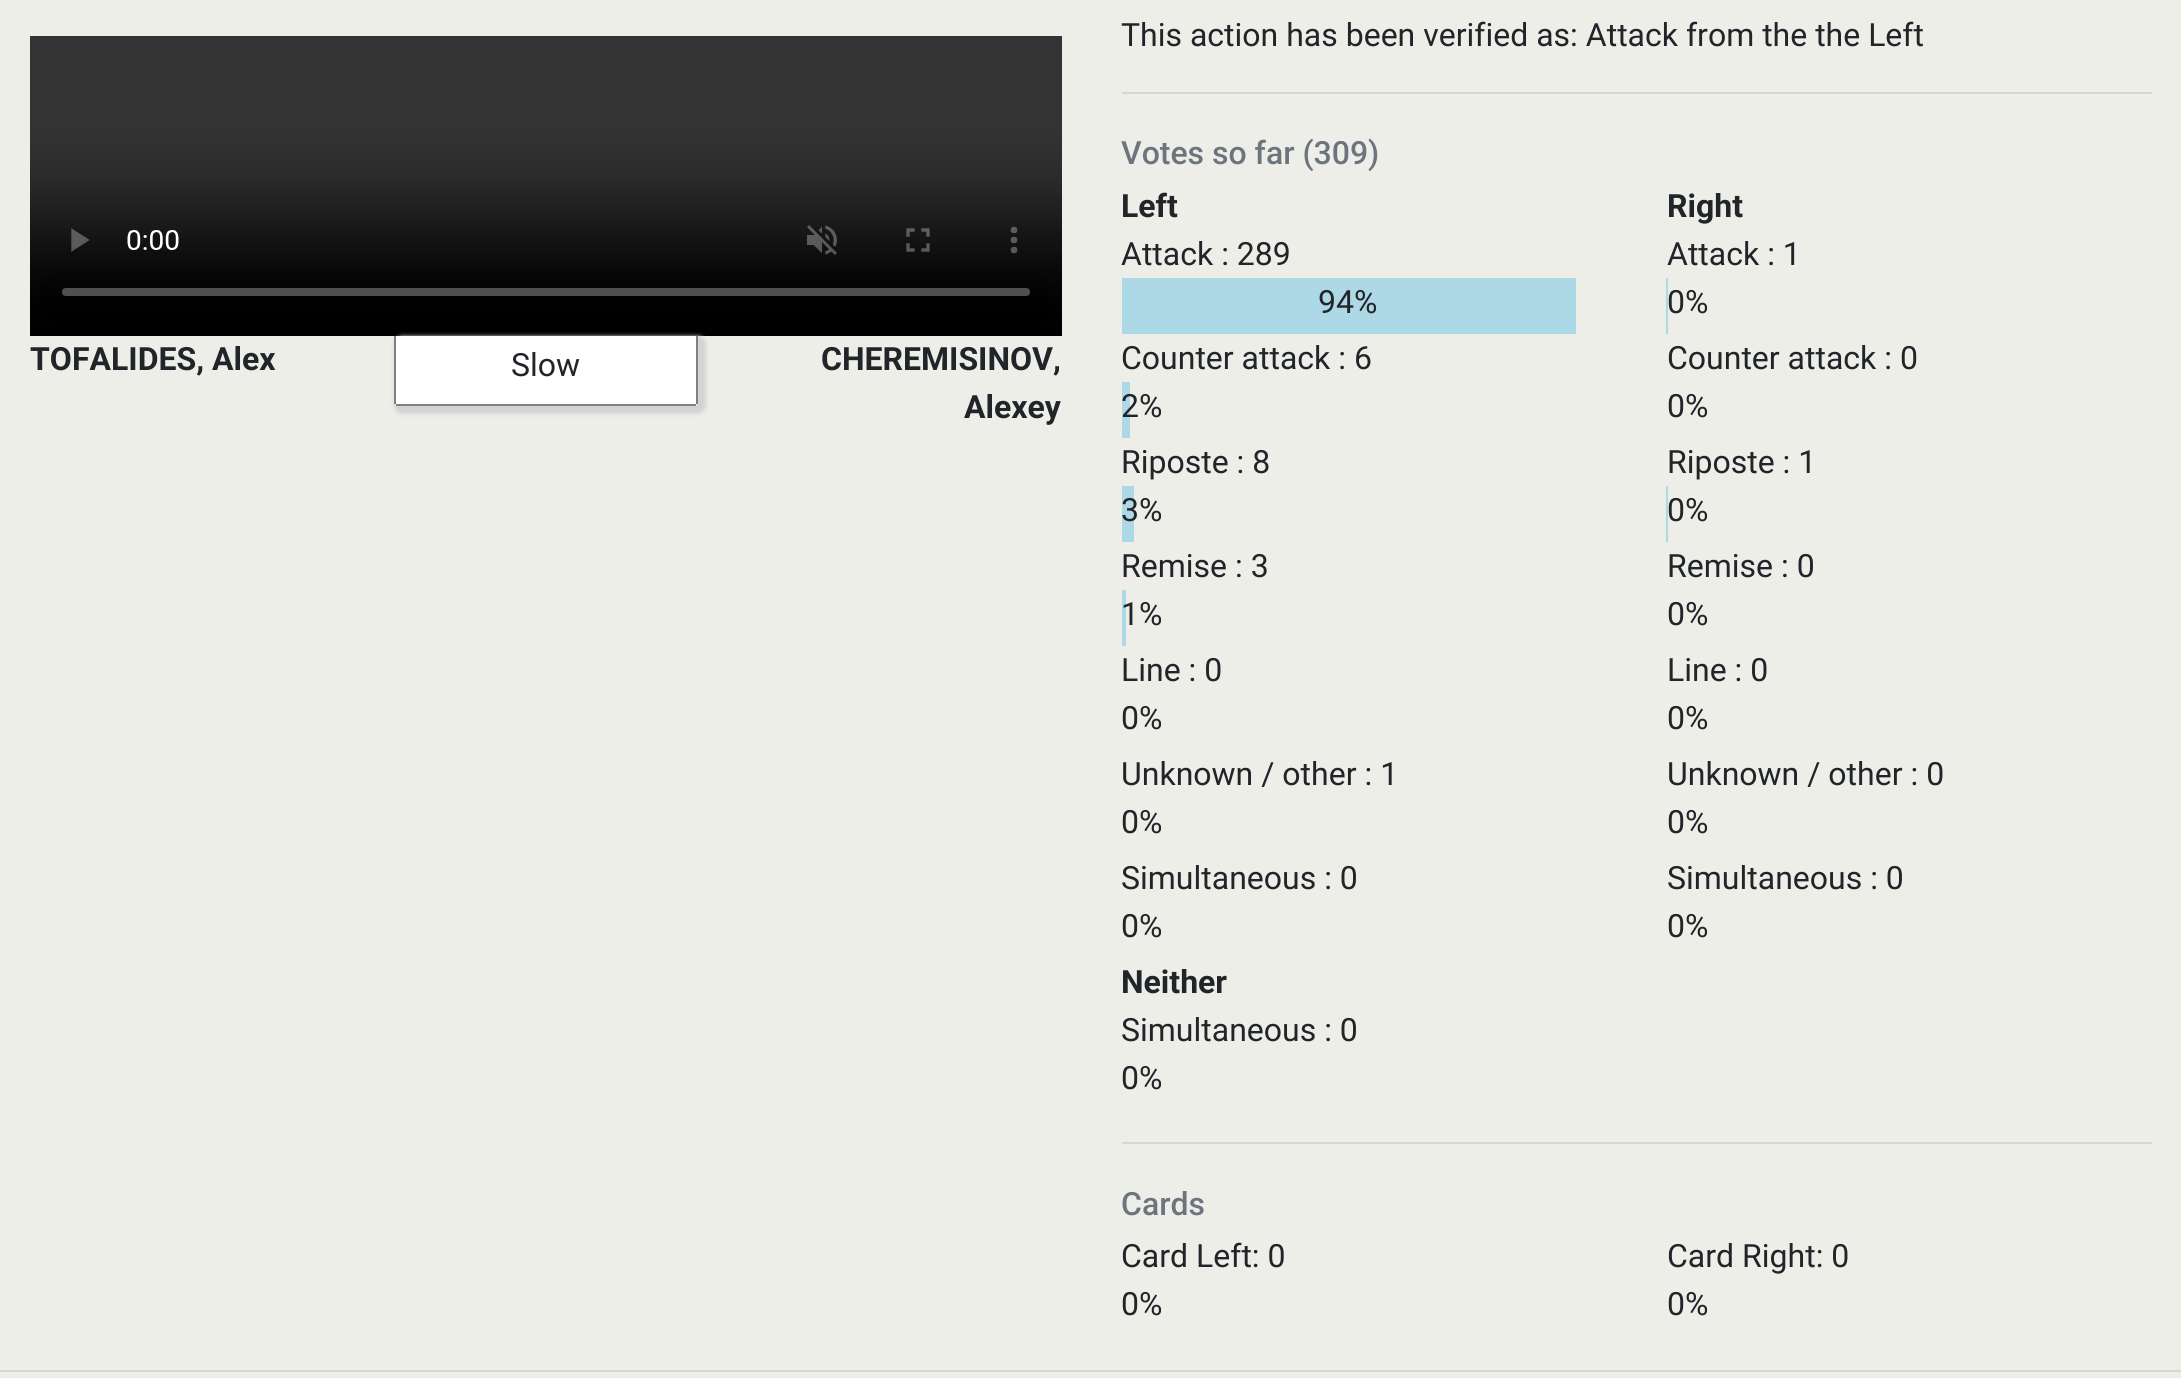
import math
import cairo


def round_path(ctx, x, y, w, h, r):
	ctx.new_sub_path()
	for i, (u, v) in enumerate([(x + w - r, y + h - r), (x + r, y + h - r), (x + r, y + r), (x + w - r, y + r)]):
		ctx.arc(u, v, r, i * math.pi / 2, (i + 1) * math.pi / 2)
	ctx.close_path()

def blur_box(ctx, x, y, w, h, r, blur, alpha):
	ctx.push_group_with_content(cairo.CONTENT_ALPHA)
	ctx.set_operator(cairo.OPERATOR_SOURCE)
	for i in range(15, -16, -2):
		e = blur * i / 6
		if min(w, h) + 2 * e > 0:
			ctx.set_source_rgba(0, 0, 0, alpha * math.erfc((i - 1) / 8.5) / 2)
			round_path(ctx, x - e, y - e, w + 2 * e, h + 2 * e, max(0, min(r + e + blur * .6, min(w, h) / 2 + e)))
			ctx.fill()
	ctx.mask(ctx.pop_group())

def paste(ctx, path, x, y, w, h):
	ctx.save()
	ctx.set_source_surface(cairo.ImageSurface.create_from_png(path), x, y)
	ctx.rectangle(x, y, w, h)
	ctx.fill()
	ctx.restore()

def draw(ctx):
	ctx.set_source_rgb(0.933, 0.933, 0.914)
	ctx.paint()
	paste(ctx, 'media/1.png', 30, 36, 1032, 300)
	ctx.select_font_face('Roboto', cairo.FONT_SLANT_NORMAL, cairo.FONT_WEIGHT_BOLD)
	ctx.set_font_size(32)
	ctx.set_source_rgb(0.129, 0.145, 0.161)
	ctx.move_to(30, 370)
	ctx.show_text('TOFALIDES, Alex')
	ctx.set_source_rgb(0.827, 0.827, 0.827)
	blur_box(ctx, 394, 336, 312, 78, 8, 2, 1)
	ctx.set_source_rgb(1, 1, 1)
	ctx.new_path()
	ctx.move_to(394, 336)
	ctx.line_to(698, 336)
	ctx.line_to(698, 402)
	ctx.curve_to(698, 404, 696, 406, 694, 406)
	ctx.line_to(398, 406)
	ctx.curve_to(396, 406, 394, 404, 394, 402)
	ctx.close_path()
	ctx.fill()
	ctx.set_source_rgb(0.502, 0.502, 0.502)
	ctx.rectangle(696, 336, 2, 68)
	ctx.rectangle(396, 404, 300, 2)
	ctx.rectangle(394, 336, 2, 68)
	ctx.fill()
	ctx.select_font_face('Roboto')
	ctx.set_source_rgb(0.129, 0.145, 0.161)
	ctx.move_to(511, 376)
	ctx.show_text('Slow')
	ctx.select_font_face('Roboto', cairo.FONT_SLANT_NORMAL, cairo.FONT_WEIGHT_BOLD)
	ctx.move_to(821, 370)
	ctx.show_text('CHEREMISINOV,')
	ctx.move_to(964, 418)
	ctx.show_text('Alexey')
	ctx.select_font_face('Roboto')
	ctx.move_to(1121, 46)
	ctx.show_text('This action has been verified as: Attack from the the Left')
	ctx.set_source_rgb(0.839, 0.839, 0.824)
	ctx.rectangle(1122, 92, 1030, 2)
	ctx.fill()
	ctx.select_font_face('Roboto Medium')
	ctx.set_source_rgb(0.424, 0.459, 0.49)
	ctx.move_to(1121, 164)
	ctx.show_text('Votes so far (309)')
	ctx.select_font_face('Roboto', cairo.FONT_SLANT_NORMAL, cairo.FONT_WEIGHT_BOLD)
	ctx.set_source_rgb(0.129, 0.145, 0.161)
	ctx.move_to(1121, 217)
	ctx.show_text('Left')
	ctx.select_font_face('Roboto')
	ctx.move_to(1121, 265)
	ctx.show_text('Attack : 289')
	ctx.set_source_rgb(0.678, 0.847, 0.902)
	ctx.rectangle(1122, 278, 454, 56)
	ctx.fill()
	ctx.set_source_rgb(0.129, 0.145, 0.161)
	ctx.move_to(1318, 313)
	ctx.show_text('94%')
	ctx.move_to(1121, 369)
	ctx.show_text('Counter attack : 6')
	ctx.set_source_rgb(0.678, 0.847, 0.902)
	ctx.rectangle(1122, 382, 8, 56)
	ctx.fill()
	ctx.set_source_rgb(0.129, 0.145, 0.161)
	ctx.move_to(1121, 417)
	ctx.show_text('2%')
	ctx.move_to(1121, 473)
	ctx.show_text('Riposte : 8')
	ctx.set_source_rgb(0.678, 0.847, 0.902)
	ctx.rectangle(1122, 486, 12, 56)
	ctx.fill()
	ctx.set_source_rgb(0.129, 0.145, 0.161)
	ctx.move_to(1121, 521)
	ctx.show_text('3%')
	ctx.move_to(1121, 577)
	ctx.show_text('Remise : 3')
	ctx.set_source_rgb(0.678, 0.847, 0.902)
	ctx.rectangle(1122, 590, 4, 56)
	ctx.fill()
	ctx.set_source_rgb(0.129, 0.145, 0.161)
	for x, y, s in [
		(1121, 625, '1%'),
		(1121, 681, 'Line : 0'),
		(1121, 729, '0%'),
		(1121, 785, 'Unknown / other : 1'),
		(1121, 833, '0%'),
		(1121, 889, 'Simultaneous : 0'),
		(1121, 937, '0%'),
	]:
		ctx.move_to(x, y)
		ctx.show_text(s)
	ctx.select_font_face('Roboto', cairo.FONT_SLANT_NORMAL, cairo.FONT_WEIGHT_BOLD)
	ctx.move_to(1667, 217)
	ctx.show_text('Right')
	ctx.select_font_face('Roboto')
	ctx.move_to(1667, 265)
	ctx.show_text('Attack : 1')
	ctx.set_source_rgb(0.678, 0.847, 0.902)
	ctx.rectangle(1666, 278, 2, 56)
	ctx.fill()
	ctx.set_source_rgb(0.129, 0.145, 0.161)
	for x, y, s in [
		(1667, 313, '0%'),
		(1667, 369, 'Counter attack : 0'),
		(1667, 417, '0%'),
		(1667, 473, 'Riposte : 1'),
	]:
		ctx.move_to(x, y)
		ctx.show_text(s)
	ctx.set_source_rgb(0.678, 0.847, 0.902)
	ctx.rectangle(1666, 486, 2, 56)
	ctx.fill()
	ctx.set_source_rgb(0.129, 0.145, 0.161)
	for x, y, s in [
		(1667, 521, '0%'),
		(1667, 577, 'Remise : 0'),
		(1667, 625, '0%'),
		(1667, 681, 'Line : 0'),
		(1667, 729, '0%'),
		(1667, 785, 'Unknown / other : 0'),
		(1667, 833, '0%'),
		(1667, 889, 'Simultaneous : 0'),
		(1667, 937, '0%'),
	]:
		ctx.move_to(x, y)
		ctx.show_text(s)
	ctx.select_font_face('Roboto', cairo.FONT_SLANT_NORMAL, cairo.FONT_WEIGHT_BOLD)
	ctx.move_to(1121, 993)
	ctx.show_text('Neither')
	ctx.select_font_face('Roboto')
	ctx.move_to(1121, 1041)
	ctx.show_text('Simultaneous : 0')
	ctx.move_to(1121, 1089)
	ctx.show_text('0%')
	ctx.set_source_rgb(0.839, 0.839, 0.824)
	ctx.rectangle(1122, 1142, 1030, 2)
	ctx.fill()
	ctx.select_font_face('Roboto Medium')
	ctx.set_source_rgb(0.424, 0.459, 0.49)
	ctx.move_to(1121, 1215)
	ctx.show_text('Cards')
	ctx.select_font_face('Roboto')
	ctx.set_source_rgb(0.129, 0.145, 0.161)
	for x, y, s in [
		(1121, 1267, 'Card Left: 0'),
		(1121, 1315, '0%'),
		(1667, 1267, 'Card Right: 0'),
		(1667, 1315, '0%'),
	]:
		ctx.move_to(x, y)
		ctx.show_text(s)
	ctx.set_source_rgb(0.839, 0.839, 0.824)
	ctx.rectangle(0, 1370, 2181, 2)
	ctx.fill()


surface = cairo.ImageSurface(cairo.FORMAT_RGB24, 2181, 1378)
ctx = cairo.Context(surface)
options = cairo.FontOptions()
options.set_hint_metrics(cairo.HINT_METRICS_OFF)
options.set_hint_style(cairo.HINT_STYLE_NONE)
ctx.set_font_options(options)
ctx.set_miter_limit(4)
draw(ctx)
surface.write_to_png('image.png')
